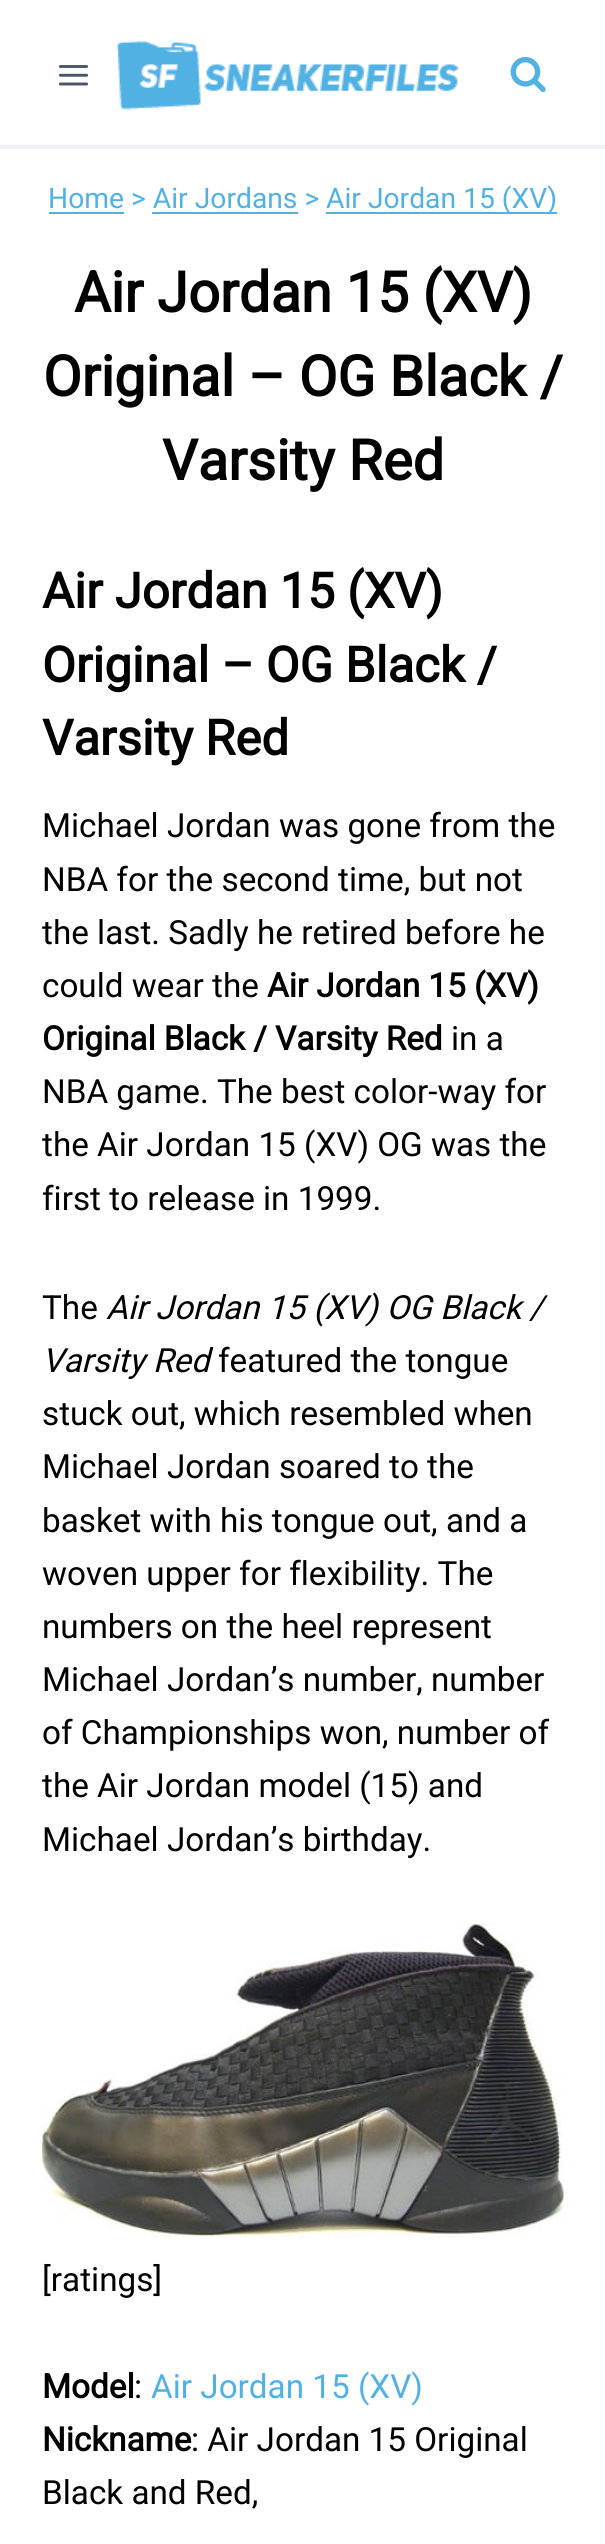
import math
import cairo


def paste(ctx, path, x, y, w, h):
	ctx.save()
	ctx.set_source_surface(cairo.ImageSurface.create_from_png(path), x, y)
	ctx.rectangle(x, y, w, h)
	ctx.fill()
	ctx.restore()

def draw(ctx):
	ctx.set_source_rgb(1, 1, 1)
	ctx.paint()
	ctx.set_source_rgb(0.929, 0.949, 0.969)
	ctx.rectangle(0, 145, 605, 4)
	ctx.fill()
	paste(ctx, 'media/1.png', 58, 65, 31, 21)
	paste(ctx, 'media/2.png', 116, 40, 343, 70)
	paste(ctx, 'media/3.png', 510, 56, 36, 36)
	ctx.select_font_face('Roboto')
	ctx.set_font_size(28.25)
	ctx.set_source_rgb(0.322, 0.694, 0.89)
	ctx.move_to(48, 208)
	ctx.show_text('Home > Air Jordans >')
	ctx.rectangle(49, 212, 75, 2)
	ctx.rectangle(152, 212, 146, 2)
	ctx.rectangle(326, 212, 231, 2)
	ctx.fill()
	ctx.move_to(326, 208)
	ctx.show_text('Air Jordan 15 (XV)')
	ctx.select_font_face('Roboto', cairo.FONT_SLANT_NORMAL, cairo.FONT_WEIGHT_BOLD)
	ctx.set_font_size(56)
	ctx.set_source_rgb(0, 0, 0)
	for x, y, s in [
		(74, 312, 'Air Jordan 15 (XV)'),
		(43, 396, 'Original – OG Black /'),
		(162, 480, 'Varsity Red'),
	]:
		ctx.move_to(x, y)
		ctx.show_text(s)
	ctx.set_font_size(49)
	for x, y, s in [
		(42, 608, 'Air Jordan 15 (XV)'),
		(42, 682, 'Original – OG Black /'),
		(42, 755, 'Varsity Red'),
	]:
		ctx.move_to(x, y)
		ctx.show_text(s)
	ctx.select_font_face('Roboto')
	ctx.set_font_size(33.25)
	for x, y, s in [
		(42, 837, 'Michael Jordan was gone from the'),
		(42, 891, 'NBA for the second time, but not'),
		(42, 944, 'the last. Sadly he retired before he'),
		(42, 997, 'could wear the'),
	]:
		ctx.move_to(x, y)
		ctx.show_text(s)
	ctx.select_font_face('Roboto', cairo.FONT_SLANT_NORMAL, cairo.FONT_WEIGHT_BOLD)
	ctx.move_to(267, 997)
	ctx.show_text('Air Jordan 15 (XV)')
	ctx.move_to(42, 1050)
	ctx.show_text('Original Black / Varsity Red')
	ctx.select_font_face('Roboto')
	for x, y, s in [
		(451, 1050, 'in a'),
		(42, 1103, 'NBA game. The best color-way for'),
		(42, 1156, 'the Air Jordan 15 (XV) OG was the'),
		(42, 1210, 'first to release in 1999.'),
		(42, 1319, 'The'),
	]:
		ctx.move_to(x, y)
		ctx.show_text(s)
	ctx.select_font_face('Roboto', cairo.FONT_SLANT_ITALIC)
	ctx.move_to(106, 1319)
	ctx.show_text('Air Jordan 15 (XV) OG Black /')
	ctx.move_to(42, 1372)
	ctx.show_text('Varsity Red')
	ctx.select_font_face('Roboto')
	for x, y, s in [
		(218, 1372, 'featured the tongue'),
		(42, 1425, 'stuck out, which resembled when'),
		(42, 1478, 'Michael Jordan soared to the'),
		(42, 1532, 'basket with his tongue out, and a'),
		(42, 1585, 'woven upper for flexibility. The'),
		(42, 1638, 'numbers on the heel represent'),
		(42, 1691, 'Michael Jordan’s number, number'),
		(42, 1744, 'of Championships won, number of'),
		(42, 1797, 'the Air Jordan model (15) and'),
		(42, 1851, 'Michael Jordan’s birthday.'),
	]:
		ctx.move_to(x, y)
		ctx.show_text(s)
	paste(ctx, 'media/4.png', 42, 1923, 522, 315)
	ctx.move_to(42, 2291)
	ctx.show_text('[ratings]')
	ctx.select_font_face('Roboto', cairo.FONT_SLANT_NORMAL, cairo.FONT_WEIGHT_BOLD)
	ctx.move_to(42, 2398)
	ctx.show_text('Model')
	ctx.select_font_face('Roboto')
	ctx.move_to(134, 2398)
	ctx.show_text(':')
	ctx.set_source_rgb(0.322, 0.694, 0.89)
	ctx.move_to(151, 2398)
	ctx.show_text('Air Jordan 15 (XV)')
	ctx.select_font_face('Roboto', cairo.FONT_SLANT_NORMAL, cairo.FONT_WEIGHT_BOLD)
	ctx.set_source_rgb(0, 0, 0)
	ctx.move_to(42, 2451)
	ctx.show_text('Nickname')
	ctx.select_font_face('Roboto')
	ctx.move_to(191, 2451)
	ctx.show_text(': Air Jordan 15 Original')
	ctx.move_to(42, 2504)
	ctx.show_text('Black and Red,')


surface = cairo.ImageSurface(cairo.FORMAT_RGB24, 605, 2544)
ctx = cairo.Context(surface)
options = cairo.FontOptions()
options.set_hint_metrics(cairo.HINT_METRICS_OFF)
options.set_hint_style(cairo.HINT_STYLE_NONE)
ctx.set_font_options(options)
ctx.set_miter_limit(4)
draw(ctx)
surface.write_to_png('image.png')
